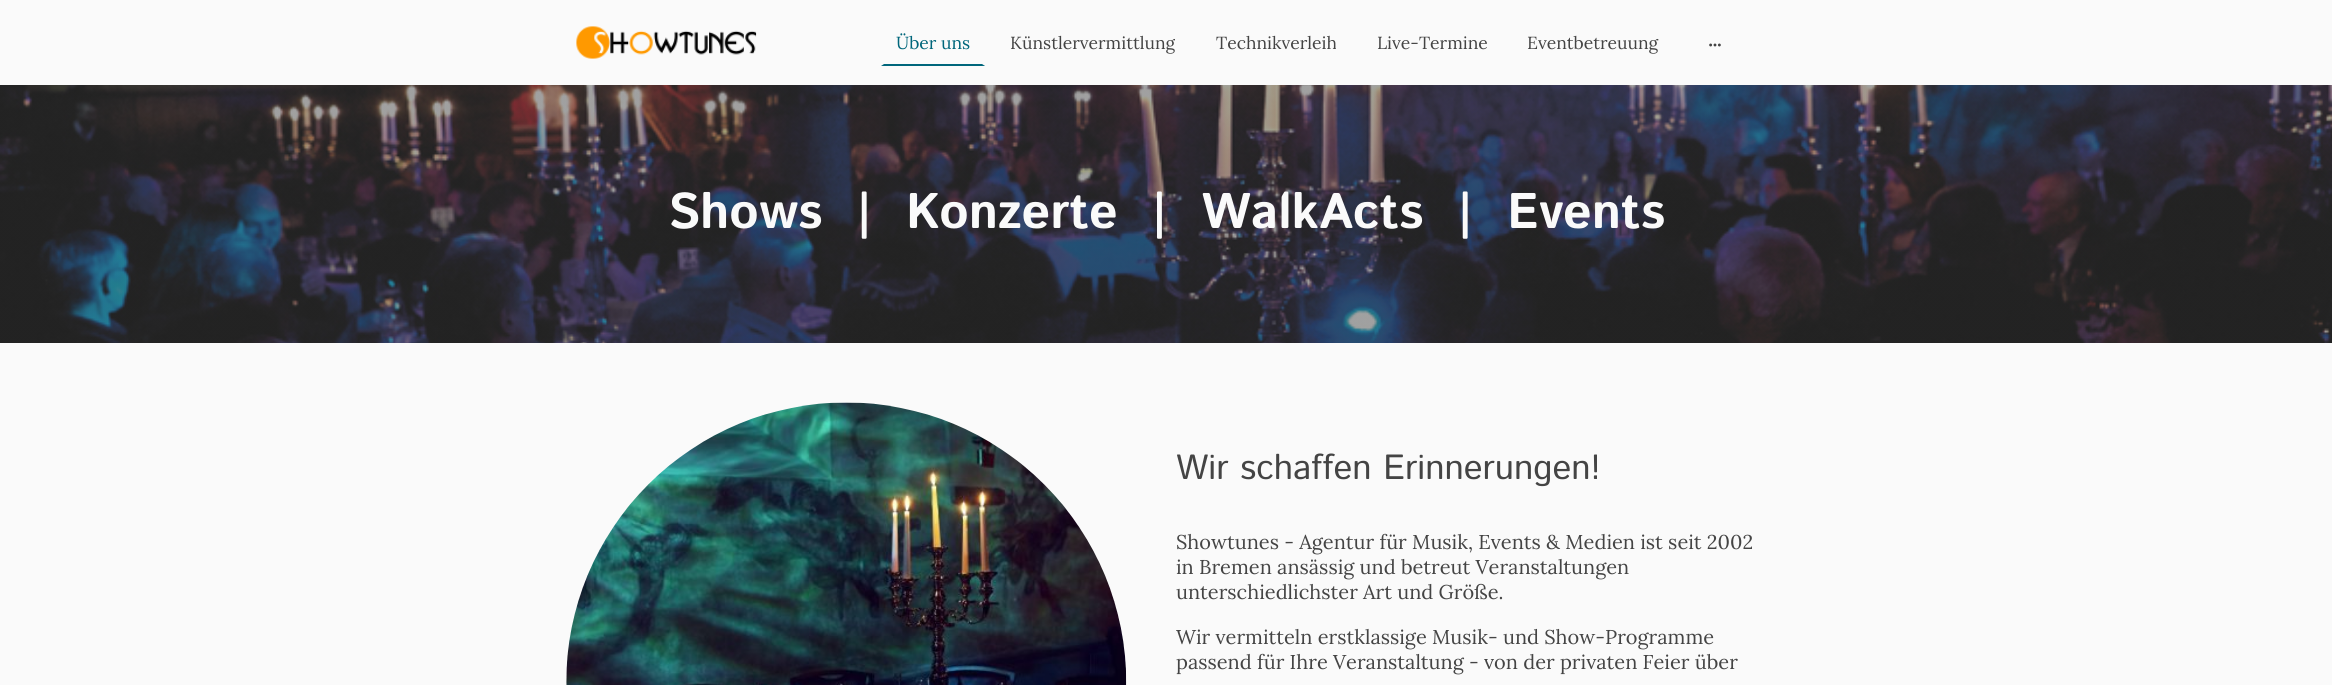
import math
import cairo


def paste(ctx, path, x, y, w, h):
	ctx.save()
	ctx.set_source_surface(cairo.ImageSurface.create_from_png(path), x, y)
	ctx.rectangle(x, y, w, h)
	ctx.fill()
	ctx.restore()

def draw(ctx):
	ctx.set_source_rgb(0.98, 0.98, 0.98)
	ctx.paint()
	paste(ctx, 'media/1.png', 576, 26, 181, 33)
	ctx.set_source_rgb(0, 0.4, 0.482)
	ctx.new_path()
	ctx.move_to(985, 66)
	ctx.line_to(881, 66)
	ctx.line_to(884, 64)
	ctx.line_to(982, 64)
	ctx.close_path()
	ctx.fill()
	ctx.select_font_face('Lora')
	ctx.set_font_size(17.5)
	ctx.move_to(896, 49)
	ctx.show_text('Über uns')
	ctx.save()
	ctx.rectangle(1010, 31, 165, 23)
	ctx.clip()
	ctx.set_source_rgb(0.267, 0.267, 0.267)
	ctx.move_to(1010, 49)
	ctx.show_text('Künstlervermittlung')
	ctx.restore()
	ctx.set_source_rgb(0.267, 0.267, 0.267)
	for x, y, s in [
		(1216, 49, 'Technikverleih'),
		(1377, 49, 'Live-Termine'),
		(1527, 49, 'Eventbetreuung'),
	]:
		ctx.move_to(x, y)
		ctx.show_text(s)
	paste(ctx, 'media/2.png', 1709, 43, 12, 4)
	paste(ctx, 'media/3.png', 0, 85, 2332, 258)
	ctx.select_font_face('Istok Web', cairo.FONT_SLANT_NORMAL, cairo.FONT_WEIGHT_BOLD)
	ctx.set_font_size(50)
	ctx.set_source_rgb(0.98, 0.98, 0.98)
	ctx.move_to(668, 228)
	ctx.show_text('Shows  |  Konzerte  |  WalkActs  |  Events')
	paste(ctx, 'media/4.png', 566, 402, 561, 283)
	ctx.select_font_face('Istok Web')
	ctx.set_font_size(35)
	ctx.set_source_rgb(0.267, 0.267, 0.267)
	ctx.move_to(1176, 479)
	ctx.show_text('Wir schaffen Erinnerungen!')
	ctx.select_font_face('Lora')
	ctx.set_font_size(20)
	for x, y, s in [
		(1176, 549, 'Showtunes - Agentur für Musik, Events & Medien ist seit 2002'),
		(1176, 574, 'in Bremen ansässig und betreut Veranstaltungen'),
		(1176, 599, 'unterschiedlichster Art und Größe.'),
		(1176, 644, 'Wir vermitteln erstklassige Musik- und Show-Programme'),
		(1176, 669, 'passend für Ihre Veranstaltung - von der privaten Feier über'),
	]:
		ctx.move_to(x, y)
		ctx.show_text(s)


surface = cairo.ImageSurface(cairo.FORMAT_RGB24, 2332, 685)
ctx = cairo.Context(surface)
options = cairo.FontOptions()
options.set_hint_metrics(cairo.HINT_METRICS_OFF)
options.set_hint_style(cairo.HINT_STYLE_NONE)
ctx.set_font_options(options)
ctx.set_miter_limit(4)
draw(ctx)
surface.write_to_png('image.png')
